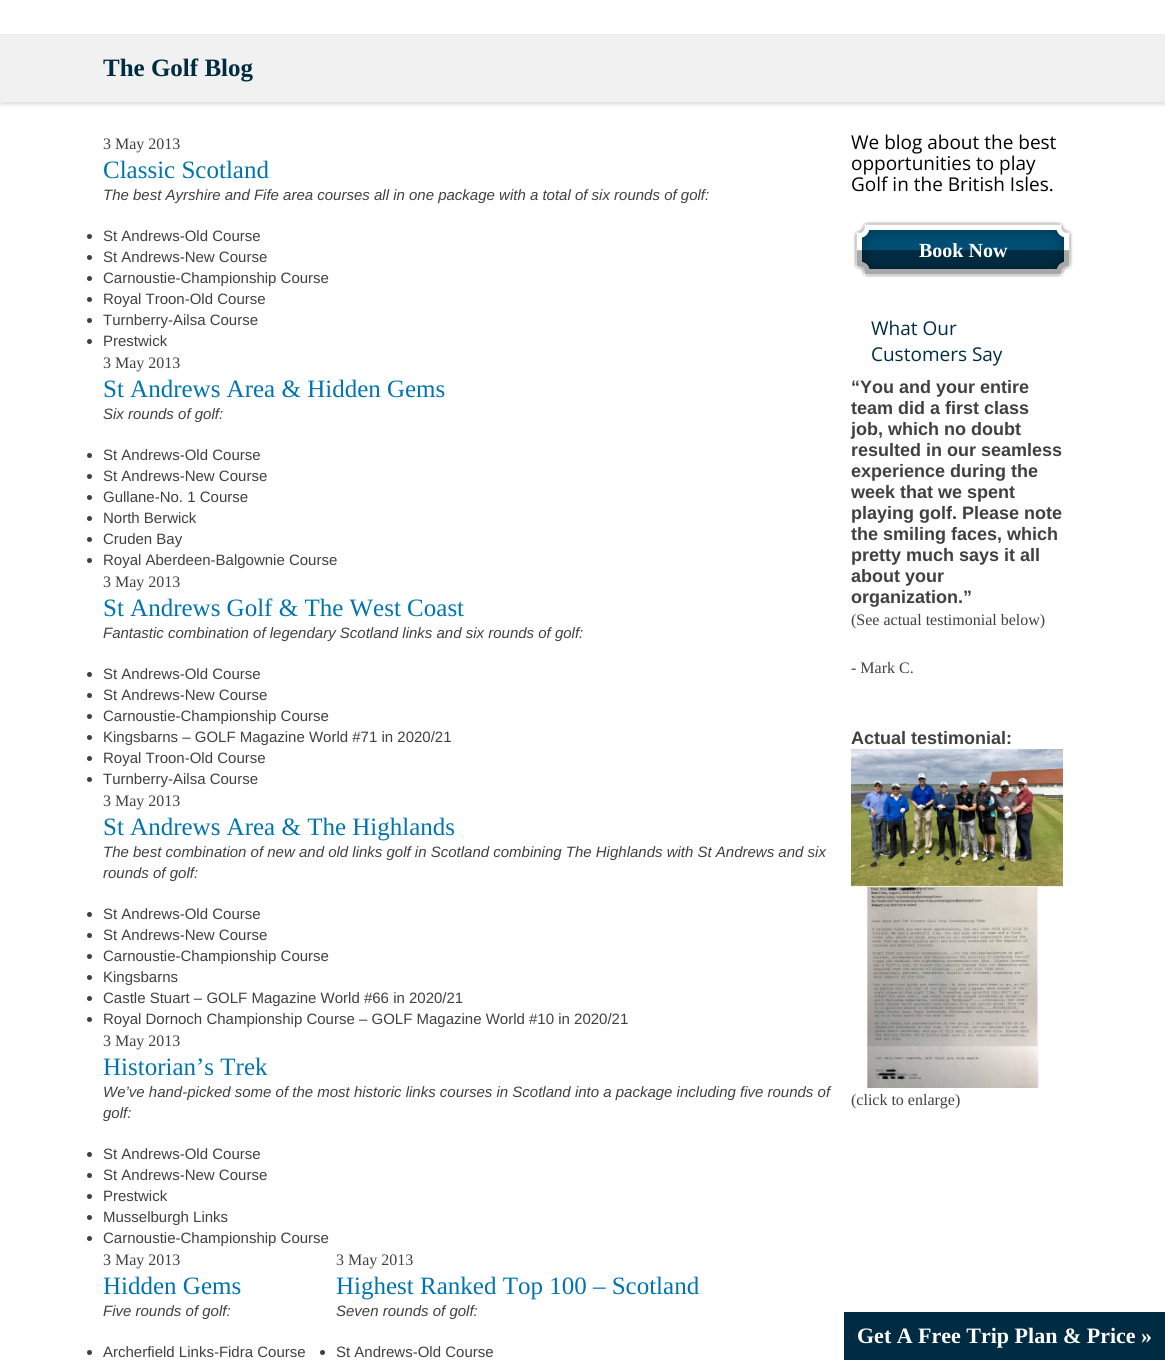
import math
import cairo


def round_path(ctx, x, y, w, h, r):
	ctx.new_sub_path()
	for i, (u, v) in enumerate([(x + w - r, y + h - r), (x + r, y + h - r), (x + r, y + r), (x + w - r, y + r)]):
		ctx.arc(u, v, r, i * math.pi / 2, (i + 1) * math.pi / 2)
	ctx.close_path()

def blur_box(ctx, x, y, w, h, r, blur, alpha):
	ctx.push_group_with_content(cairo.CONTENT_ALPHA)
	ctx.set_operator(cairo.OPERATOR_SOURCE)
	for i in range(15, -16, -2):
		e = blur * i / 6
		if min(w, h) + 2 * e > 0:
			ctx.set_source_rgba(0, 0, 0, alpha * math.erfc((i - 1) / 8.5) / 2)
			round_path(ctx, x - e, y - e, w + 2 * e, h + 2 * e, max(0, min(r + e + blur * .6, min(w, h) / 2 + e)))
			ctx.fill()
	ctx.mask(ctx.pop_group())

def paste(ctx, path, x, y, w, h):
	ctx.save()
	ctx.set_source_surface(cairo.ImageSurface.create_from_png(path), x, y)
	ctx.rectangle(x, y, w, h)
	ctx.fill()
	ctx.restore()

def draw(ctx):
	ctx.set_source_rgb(1, 1, 1)
	ctx.paint()
	ctx.set_source_rgb(0.882, 0.882, 0.882)
	blur_box(ctx, 0, 37, 1165, 68, 0, 1.5, 1)
	ctx.set_source_rgb(0.945, 0.945, 0.945)
	ctx.rectangle(0, 34, 1165, 68)
	ctx.fill()
	ctx.save()
	ctx.rectangle(103, 54, 960, 38)
	ctx.clip()
	ctx.select_font_face('Liberation Serif', cairo.FONT_SLANT_NORMAL, cairo.FONT_WEIGHT_BOLD)
	ctx.set_font_size(25)
	ctx.set_source_rgb(0, 0.173, 0.263)
	ctx.move_to(103, 76)
	ctx.show_text('The Golf Blog')
	ctx.restore()
	ctx.select_font_face('Liberation Serif')
	ctx.set_font_size(16)
	ctx.set_source_rgb(0.251, 0.251, 0.251)
	ctx.move_to(103, 149)
	ctx.show_text('3 May 2013')
	ctx.set_font_size(25)
	ctx.set_source_rgb(0, 0.455, 0.69)
	ctx.move_to(103, 178)
	ctx.show_text('Classic Scotland')
	ctx.select_font_face('Liberation Sans', cairo.FONT_SLANT_ITALIC)
	ctx.set_font_size(15)
	ctx.set_source_rgb(0.251, 0.251, 0.251)
	ctx.move_to(103, 200)
	ctx.show_text('The best Ayrshire and Fife area courses all in one package with a total of six rounds of golf:')
	ctx.new_path()
	ctx.arc(89.5, 236.5, 2.5, 0, 2 * math.pi)
	ctx.fill()
	ctx.select_font_face('Liberation Sans')
	ctx.move_to(103, 241)
	ctx.show_text('St Andrews-Old Course')
	ctx.new_path()
	ctx.arc(89.5, 257.5, 2.5, 0, 2 * math.pi)
	ctx.fill()
	ctx.move_to(103, 262)
	ctx.show_text('St Andrews-New Course')
	ctx.new_path()
	ctx.arc(89.5, 278.5, 2.5, 0, 2 * math.pi)
	ctx.fill()
	ctx.move_to(103, 283)
	ctx.show_text('Carnoustie-Championship Course')
	ctx.new_path()
	ctx.arc(89.5, 299.5, 2.5, 0, 2 * math.pi)
	ctx.fill()
	ctx.move_to(103, 304)
	ctx.show_text('Royal Troon-Old Course')
	ctx.new_path()
	ctx.arc(89.5, 320.5, 2.5, 0, 2 * math.pi)
	ctx.fill()
	ctx.move_to(103, 325)
	ctx.show_text('Turnberry-Ailsa Course')
	ctx.new_path()
	ctx.arc(89.5, 341.5, 2.5, 0, 2 * math.pi)
	ctx.fill()
	ctx.move_to(103, 346)
	ctx.show_text('Prestwick')
	ctx.select_font_face('Liberation Serif')
	ctx.set_font_size(16)
	ctx.move_to(103, 368)
	ctx.show_text('3 May 2013')
	ctx.set_font_size(25)
	ctx.set_source_rgb(0, 0.455, 0.69)
	ctx.move_to(103, 397)
	ctx.show_text('St Andrews Area & Hidden Gems')
	ctx.select_font_face('Liberation Sans', cairo.FONT_SLANT_ITALIC)
	ctx.set_font_size(15)
	ctx.set_source_rgb(0.251, 0.251, 0.251)
	ctx.move_to(103, 419)
	ctx.show_text('Six rounds of golf:')
	ctx.new_path()
	ctx.arc(89.5, 455.5, 2.5, 0, 2 * math.pi)
	ctx.fill()
	ctx.select_font_face('Liberation Sans')
	ctx.move_to(103, 460)
	ctx.show_text('St Andrews-Old Course')
	ctx.new_path()
	ctx.arc(89.5, 476.5, 2.5, 0, 2 * math.pi)
	ctx.fill()
	ctx.move_to(103, 481)
	ctx.show_text('St Andrews-New Course')
	ctx.new_path()
	ctx.arc(89.5, 497.5, 2.5, 0, 2 * math.pi)
	ctx.fill()
	ctx.move_to(103, 502)
	ctx.show_text('Gullane-No. 1 Course')
	ctx.new_path()
	ctx.arc(89.5, 518.5, 2.5, 0, 2 * math.pi)
	ctx.fill()
	ctx.move_to(103, 523)
	ctx.show_text('North Berwick')
	ctx.new_path()
	ctx.arc(89.5, 539.5, 2.5, 0, 2 * math.pi)
	ctx.fill()
	ctx.move_to(103, 544)
	ctx.show_text('Cruden Bay')
	ctx.new_path()
	ctx.arc(89.5, 560.5, 2.5, 0, 2 * math.pi)
	ctx.fill()
	ctx.move_to(103, 565)
	ctx.show_text('Royal Aberdeen-Balgownie Course')
	ctx.select_font_face('Liberation Serif')
	ctx.set_font_size(16)
	ctx.move_to(103, 587)
	ctx.show_text('3 May 2013')
	ctx.set_font_size(25)
	ctx.set_source_rgb(0, 0.455, 0.69)
	ctx.move_to(103, 616)
	ctx.show_text('St Andrews Golf & The West Coast')
	ctx.select_font_face('Liberation Sans', cairo.FONT_SLANT_ITALIC)
	ctx.set_font_size(15)
	ctx.set_source_rgb(0.251, 0.251, 0.251)
	ctx.move_to(103, 638)
	ctx.show_text('Fantastic combination of legendary Scotland links and six rounds of golf:')
	ctx.new_path()
	ctx.arc(89.5, 674.5, 2.5, 0, 2 * math.pi)
	ctx.fill()
	ctx.select_font_face('Liberation Sans')
	ctx.move_to(103, 679)
	ctx.show_text('St Andrews-Old Course')
	ctx.new_path()
	ctx.arc(89.5, 695.5, 2.5, 0, 2 * math.pi)
	ctx.fill()
	ctx.move_to(103, 700)
	ctx.show_text('St Andrews-New Course')
	ctx.new_path()
	ctx.arc(89.5, 716.5, 2.5, 0, 2 * math.pi)
	ctx.fill()
	ctx.move_to(103, 721)
	ctx.show_text('Carnoustie-Championship Course')
	ctx.new_path()
	ctx.arc(89.5, 737.5, 2.5, 0, 2 * math.pi)
	ctx.fill()
	ctx.move_to(103, 742)
	ctx.show_text('Kingsbarns – GOLF Magazine World #71 in 2020/21')
	ctx.new_path()
	ctx.arc(89.5, 758.5, 2.5, 0, 2 * math.pi)
	ctx.fill()
	ctx.move_to(103, 763)
	ctx.show_text('Royal Troon-Old Course')
	ctx.new_path()
	ctx.arc(89.5, 779.5, 2.5, 0, 2 * math.pi)
	ctx.fill()
	ctx.move_to(103, 784)
	ctx.show_text('Turnberry-Ailsa Course')
	ctx.select_font_face('Liberation Serif')
	ctx.set_font_size(16)
	ctx.move_to(103, 806)
	ctx.show_text('3 May 2013')
	ctx.set_font_size(25)
	ctx.set_source_rgb(0, 0.455, 0.69)
	ctx.move_to(103, 835)
	ctx.show_text('St Andrews Area & The Highlands')
	ctx.select_font_face('Liberation Sans', cairo.FONT_SLANT_ITALIC)
	ctx.set_font_size(15)
	ctx.set_source_rgb(0.251, 0.251, 0.251)
	ctx.move_to(103, 857)
	ctx.show_text('The best combination of new and old links golf in Scotland combining The Highlands with St Andrews and six')
	ctx.move_to(103, 878)
	ctx.show_text('rounds of golf:')
	ctx.new_path()
	ctx.arc(89.5, 914.5, 2.5, 0, 2 * math.pi)
	ctx.fill()
	ctx.select_font_face('Liberation Sans')
	ctx.move_to(103, 919)
	ctx.show_text('St Andrews-Old Course')
	ctx.new_path()
	ctx.arc(89.5, 935.5, 2.5, 0, 2 * math.pi)
	ctx.fill()
	ctx.move_to(103, 940)
	ctx.show_text('St Andrews-New Course')
	ctx.new_path()
	ctx.arc(89.5, 956.5, 2.5, 0, 2 * math.pi)
	ctx.fill()
	ctx.move_to(103, 961)
	ctx.show_text('Carnoustie-Championship Course')
	ctx.new_path()
	ctx.arc(89.5, 977.5, 2.5, 0, 2 * math.pi)
	ctx.fill()
	ctx.move_to(103, 982)
	ctx.show_text('Kingsbarns')
	ctx.new_path()
	ctx.arc(89.5, 998.5, 2.5, 0, 2 * math.pi)
	ctx.fill()
	ctx.move_to(103, 1003)
	ctx.show_text('Castle Stuart – GOLF Magazine World #66 in 2020/21')
	ctx.new_path()
	ctx.arc(89.5, 1019.5, 2.5, 0, 2 * math.pi)
	ctx.fill()
	ctx.move_to(103, 1024)
	ctx.show_text('Royal Dornoch Championship Course – GOLF Magazine World #10 in 2020/21')
	ctx.select_font_face('Liberation Serif')
	ctx.set_font_size(16)
	ctx.move_to(103, 1046)
	ctx.show_text('3 May 2013')
	ctx.set_font_size(25)
	ctx.set_source_rgb(0, 0.455, 0.69)
	ctx.move_to(103, 1075)
	ctx.show_text('Historian’s Trek')
	ctx.select_font_face('Liberation Sans', cairo.FONT_SLANT_ITALIC)
	ctx.set_font_size(15)
	ctx.set_source_rgb(0.251, 0.251, 0.251)
	ctx.move_to(103, 1097)
	ctx.show_text('We’ve hand-picked some of the most historic links courses in Scotland into a package including five rounds of')
	ctx.move_to(103, 1118)
	ctx.show_text('golf:')
	ctx.new_path()
	ctx.arc(89.5, 1154.5, 2.5, 0, 2 * math.pi)
	ctx.fill()
	ctx.select_font_face('Liberation Sans')
	ctx.move_to(103, 1159)
	ctx.show_text('St Andrews-Old Course')
	ctx.new_path()
	ctx.arc(89.5, 1175.5, 2.5, 0, 2 * math.pi)
	ctx.fill()
	ctx.move_to(103, 1180)
	ctx.show_text('St Andrews-New Course')
	ctx.new_path()
	ctx.arc(89.5, 1196.5, 2.5, 0, 2 * math.pi)
	ctx.fill()
	ctx.move_to(103, 1201)
	ctx.show_text('Prestwick')
	ctx.new_path()
	ctx.arc(89.5, 1217.5, 2.5, 0, 2 * math.pi)
	ctx.fill()
	ctx.move_to(103, 1222)
	ctx.show_text('Musselburgh Links')
	ctx.new_path()
	ctx.arc(89.5, 1238.5, 2.5, 0, 2 * math.pi)
	ctx.fill()
	ctx.move_to(103, 1243)
	ctx.show_text('Carnoustie-Championship Course')
	ctx.select_font_face('Liberation Serif')
	ctx.set_font_size(16)
	ctx.move_to(103, 1265)
	ctx.show_text('3 May 2013')
	ctx.set_font_size(25)
	ctx.set_source_rgb(0, 0.455, 0.69)
	ctx.move_to(103, 1294)
	ctx.show_text('Hidden Gems')
	ctx.select_font_face('Liberation Sans', cairo.FONT_SLANT_ITALIC)
	ctx.set_font_size(15)
	ctx.set_source_rgb(0.251, 0.251, 0.251)
	ctx.move_to(103, 1316)
	ctx.show_text('Five rounds of golf:')
	ctx.new_path()
	ctx.arc(89.5, 1352.5, 2.5, 0, 2 * math.pi)
	ctx.fill()
	ctx.select_font_face('Liberation Sans')
	ctx.move_to(103, 1357)
	ctx.show_text('Archerfield Links-Fidra Course')
	ctx.select_font_face('Liberation Serif')
	ctx.set_font_size(16)
	ctx.move_to(336, 1265)
	ctx.show_text('3 May 2013')
	ctx.set_font_size(25)
	ctx.set_source_rgb(0, 0.455, 0.69)
	ctx.move_to(336, 1294)
	ctx.show_text('Highest Ranked Top 100 – Scotland')
	ctx.select_font_face('Liberation Sans', cairo.FONT_SLANT_ITALIC)
	ctx.set_font_size(15)
	ctx.set_source_rgb(0.251, 0.251, 0.251)
	ctx.move_to(336, 1316)
	ctx.show_text('Seven rounds of golf:')
	ctx.new_path()
	ctx.arc(322.5, 1352.5, 2.5, 0, 2 * math.pi)
	ctx.fill()
	ctx.select_font_face('Liberation Sans')
	ctx.move_to(336, 1357)
	ctx.show_text('St Andrews-Old Course')
	ctx.select_font_face('Open Sans')
	ctx.set_font_size(19)
	ctx.set_source_rgb(0, 0, 0)
	for x, y, s in [
		(851, 149, 'We blog about the best'),
		(851, 170, 'opportunities to play'),
		(851, 191, 'Golf in the British Isles.'),
	]:
		ctx.move_to(x, y)
		ctx.show_text(s)
	paste(ctx, 'media/1.png', 853, 221, 220, 57)
	ctx.select_font_face('Liberation Serif', cairo.FONT_SLANT_NORMAL, cairo.FONT_WEIGHT_BOLD)
	ctx.set_font_size(20)
	ctx.set_source_rgb(1, 1, 1)
	ctx.move_to(919, 257)
	ctx.show_text('Book Now')
	ctx.select_font_face('Open Sans')
	ctx.set_font_size(19)
	ctx.set_source_rgb(0, 0.173, 0.263)
	ctx.move_to(871, 335)
	ctx.show_text('What Our')
	ctx.move_to(871, 361)
	ctx.show_text('Customers Say')
	ctx.select_font_face('Liberation Sans', cairo.FONT_SLANT_NORMAL, cairo.FONT_WEIGHT_BOLD)
	ctx.set_font_size(18)
	ctx.set_source_rgb(0.251, 0.251, 0.251)
	for x, y, s in [
		(851, 393, '“You and your entire'),
		(851, 414, 'team did a first class'),
		(851, 435, 'job, which no doubt'),
		(851, 456, 'resulted in our seamless'),
		(851, 477, 'experience during the'),
		(851, 498, 'week that we spent'),
		(851, 519, 'playing golf. Please note'),
		(851, 540, 'the smiling faces, which'),
		(851, 561, 'pretty much says it all'),
		(851, 582, 'about your'),
		(851, 603, 'organization.”'),
	]:
		ctx.move_to(x, y)
		ctx.show_text(s)
	ctx.select_font_face('Liberation Serif')
	ctx.set_font_size(16)
	ctx.move_to(851, 625)
	ctx.show_text('(See actual testimonial below)')
	ctx.move_to(851, 673)
	ctx.show_text('- Mark C.')
	ctx.select_font_face('Liberation Sans', cairo.FONT_SLANT_NORMAL, cairo.FONT_WEIGHT_BOLD)
	ctx.set_font_size(18)
	ctx.move_to(851, 744)
	ctx.show_text('Actual testimonial:')
	paste(ctx, 'media/2.png', 851, 749, 212, 339)
	ctx.select_font_face('Liberation Serif')
	ctx.set_font_size(16)
	ctx.move_to(851, 1105)
	ctx.show_text('(click to enlarge)')
	ctx.set_source_rgb(0, 0.173, 0.263)
	ctx.rectangle(844, 1312, 321, 48)
	ctx.fill()
	ctx.select_font_face('Liberation Serif', cairo.FONT_SLANT_NORMAL, cairo.FONT_WEIGHT_BOLD)
	ctx.set_font_size(22)
	ctx.set_source_rgb(1, 1, 1)
	ctx.move_to(857, 1343)
	ctx.show_text('Get A Free Trip Plan & Price »')


surface = cairo.ImageSurface(cairo.FORMAT_RGB24, 1165, 1360)
ctx = cairo.Context(surface)
options = cairo.FontOptions()
options.set_hint_metrics(cairo.HINT_METRICS_OFF)
options.set_hint_style(cairo.HINT_STYLE_NONE)
ctx.set_font_options(options)
ctx.set_miter_limit(4)
draw(ctx)
surface.write_to_png('image.png')
